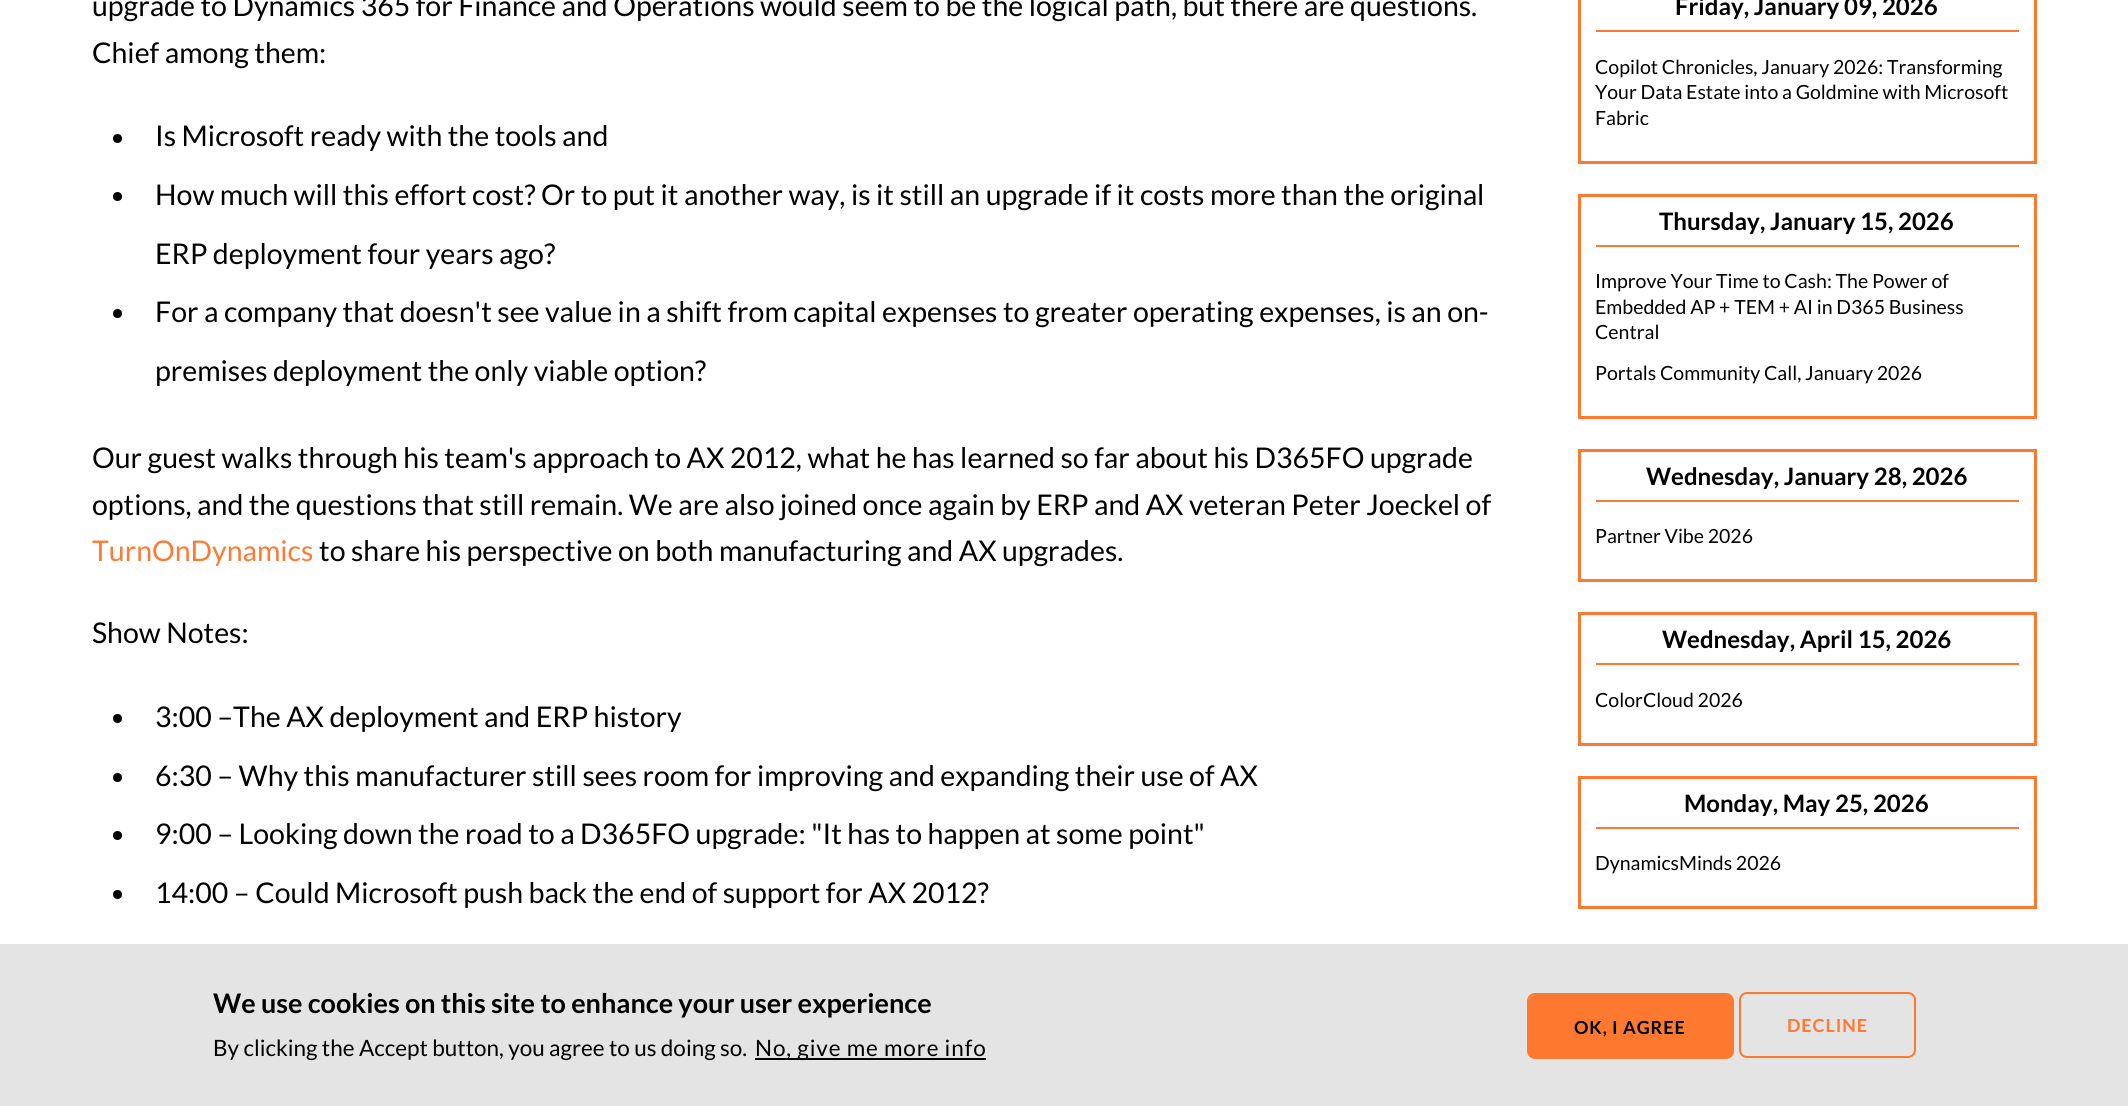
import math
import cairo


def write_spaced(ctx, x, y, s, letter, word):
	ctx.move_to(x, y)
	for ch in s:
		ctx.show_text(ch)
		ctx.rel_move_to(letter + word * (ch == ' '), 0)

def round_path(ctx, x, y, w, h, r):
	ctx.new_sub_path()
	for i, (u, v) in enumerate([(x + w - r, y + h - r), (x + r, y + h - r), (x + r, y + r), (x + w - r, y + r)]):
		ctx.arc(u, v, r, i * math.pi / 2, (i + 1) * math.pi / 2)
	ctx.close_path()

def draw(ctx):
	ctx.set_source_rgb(1, 1, 1)
	ctx.paint()
	ctx.select_font_face('Lato')
	ctx.set_font_size(28.5)
	ctx.set_source_rgb(0, 0, 0)
	ctx.move_to(92, 16)
	ctx.show_text('upgrade to Dynamics 365 for Finance and Operations would seem to be the logical path, but there are questions.')
	ctx.move_to(92, 63)
	ctx.show_text('Chief among them:')
	ctx.new_path()
	ctx.arc(117.5, 138.5, 4.5, 0, 2 * math.pi)
	ctx.fill()
	ctx.move_to(155, 146)
	ctx.show_text('Is Microsoft ready with the tools and')
	ctx.new_path()
	ctx.arc(117.5, 196.5, 4.5, 0, 2 * math.pi)
	ctx.fill()
	ctx.move_to(155, 205)
	ctx.show_text('How much will this effort cost? Or to put it another way, is it still an upgrade if it costs more than the original')
	ctx.move_to(155, 264)
	ctx.show_text('ERP deployment four years ago?')
	ctx.new_path()
	ctx.arc(117.5, 313.5, 4.5, 0, 2 * math.pi)
	ctx.fill()
	for x, y, s in [
		(155, 322, 'For a company that doesn\'t see value in a shift from capital expenses to greater operating expenses, is an on-'),
		(155, 381, 'premises deployment the only viable option?'),
		(92, 468, 'Our guest walks through his team\'s approach to AX 2012, what he has learned so far about his D365FO upgrade'),
		(92, 515, 'options, and the questions that still remain. We are also joined once again by ERP and AX veteran Peter Joeckel of'),
	]:
		ctx.move_to(x, y)
		ctx.show_text(s)
	ctx.set_source_rgb(1, 0.475, 0.2)
	ctx.move_to(92, 561)
	ctx.show_text('TurnOnDynamics')
	ctx.set_source_rgb(0, 0, 0)
	ctx.move_to(319, 561)
	ctx.show_text('to share his perspective on both manufacturing and AX upgrades.')
	ctx.move_to(92, 643)
	ctx.show_text('Show Notes:')
	ctx.new_path()
	ctx.arc(117.5, 718.5, 4.5, 0, 2 * math.pi)
	ctx.fill()
	ctx.move_to(155, 727)
	ctx.show_text('3:00 –The AX deployment and ERP history')
	ctx.new_path()
	ctx.arc(117.5, 777.5, 4.5, 0, 2 * math.pi)
	ctx.fill()
	ctx.move_to(155, 786)
	ctx.show_text('6:30 – Why this manufacturer still sees room for improving and expanding their use of AX')
	ctx.new_path()
	ctx.arc(117.5, 835.5, 4.5, 0, 2 * math.pi)
	ctx.fill()
	ctx.move_to(155, 844)
	ctx.show_text('9:00 – Looking down the road to a D365FO upgrade: "It has to happen at some point"')
	ctx.new_path()
	ctx.arc(117.5, 894.5, 4.5, 0, 2 * math.pi)
	ctx.fill()
	ctx.move_to(155, 903)
	ctx.show_text('14:00 – Could Microsoft push back the end of support for AX 2012?')
	ctx.rectangle(1579.5, -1.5, 456, 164)
	ctx.set_source_rgb(0.992, 0.475, 0.188)
	ctx.set_line_width(3)
	ctx.stroke()
	ctx.select_font_face('Lato', cairo.FONT_SLANT_NORMAL, cairo.FONT_WEIGHT_BOLD)
	ctx.set_font_size(24)
	ctx.set_source_rgb(0, 0, 0)
	ctx.move_to(1675, 15)
	ctx.show_text('Friday, January 09, 2026')
	ctx.set_source_rgb(0.992, 0.475, 0.188)
	ctx.rectangle(1596, 30, 423, 2)
	ctx.fill()
	ctx.select_font_face('Lato')
	ctx.set_font_size(19.5)
	ctx.set_source_rgb(0, 0, 0)
	for x, y, s in [
		(1595, 74, 'Copilot Chronicles, January 2026: Transforming'),
		(1595, 99, 'Your Data Estate into a Goldmine with Microsoft'),
		(1595, 125, 'Fabric'),
	]:
		ctx.move_to(x, y)
		ctx.show_text(s)
	ctx.rectangle(1579.5, 195.5, 456, 222)
	ctx.set_source_rgb(0.992, 0.475, 0.188)
	ctx.stroke()
	ctx.select_font_face('Lato', cairo.FONT_SLANT_NORMAL, cairo.FONT_WEIGHT_BOLD)
	ctx.set_font_size(24)
	ctx.set_source_rgb(0, 0, 0)
	ctx.move_to(1659, 230)
	ctx.show_text('Thursday, January 15, 2026')
	ctx.set_source_rgb(0.992, 0.475, 0.188)
	ctx.rectangle(1596, 245, 423, 2)
	ctx.fill()
	ctx.select_font_face('Lato')
	ctx.set_font_size(19.5)
	ctx.set_source_rgb(0, 0, 0)
	for x, y, s in [
		(1595, 288, 'Improve Your Time to Cash: The Power of'),
		(1595, 314, 'Embedded AP + TEM + AI in D365 Business'),
		(1595, 339, 'Central'),
		(1595, 380, 'Portals Community Call, January 2026'),
	]:
		ctx.move_to(x, y)
		ctx.show_text(s)
	ctx.rectangle(1579.5, 450.5, 456, 130)
	ctx.set_source_rgb(0.992, 0.475, 0.188)
	ctx.stroke()
	ctx.select_font_face('Lato', cairo.FONT_SLANT_NORMAL, cairo.FONT_WEIGHT_BOLD)
	ctx.set_font_size(24)
	ctx.set_source_rgb(0, 0, 0)
	ctx.move_to(1646, 485)
	ctx.show_text('Wednesday, January 28, 2026')
	ctx.set_source_rgb(0.992, 0.475, 0.188)
	ctx.rectangle(1596, 500, 423, 2)
	ctx.fill()
	ctx.select_font_face('Lato')
	ctx.set_font_size(19.5)
	ctx.set_source_rgb(0, 0, 0)
	ctx.move_to(1595, 543)
	ctx.show_text('Partner Vibe 2026')
	ctx.rectangle(1579.5, 613.5, 456, 131)
	ctx.set_source_rgb(0.992, 0.475, 0.188)
	ctx.stroke()
	ctx.select_font_face('Lato', cairo.FONT_SLANT_NORMAL, cairo.FONT_WEIGHT_BOLD)
	ctx.set_font_size(24)
	ctx.set_source_rgb(0, 0, 0)
	ctx.move_to(1662, 648)
	ctx.show_text('Wednesday, April 15, 2026')
	ctx.set_source_rgb(0.992, 0.475, 0.188)
	ctx.rectangle(1596, 663, 423, 2)
	ctx.fill()
	ctx.select_font_face('Lato')
	ctx.set_font_size(19.5)
	ctx.set_source_rgb(0, 0, 0)
	ctx.move_to(1595, 707)
	ctx.show_text('ColorCloud 2026')
	ctx.rectangle(1579.5, 777.5, 456, 130)
	ctx.set_source_rgb(0.992, 0.475, 0.188)
	ctx.stroke()
	ctx.select_font_face('Lato', cairo.FONT_SLANT_NORMAL, cairo.FONT_WEIGHT_BOLD)
	ctx.set_font_size(24)
	ctx.set_source_rgb(0, 0, 0)
	ctx.move_to(1684, 812)
	ctx.show_text('Monday, May 25, 2026')
	ctx.set_source_rgb(0.992, 0.475, 0.188)
	ctx.rectangle(1596, 827, 423, 2)
	ctx.fill()
	ctx.select_font_face('Lato')
	ctx.set_font_size(19.5)
	ctx.set_source_rgb(0, 0, 0)
	ctx.move_to(1595, 870)
	ctx.show_text('DynamicsMinds 2026')
	ctx.set_source_rgb(0.894, 0.894, 0.894)
	ctx.rectangle(0, 944, 2128, 162)
	ctx.fill()
	ctx.select_font_face('Lato', cairo.FONT_SLANT_NORMAL, cairo.FONT_WEIGHT_BOLD)
	ctx.set_font_size(27)
	ctx.set_source_rgb(0, 0, 0)
	ctx.move_to(213, 1013)
	ctx.show_text('We use cookies on this site to enhance your user experience')
	ctx.select_font_face('Lato')
	ctx.set_font_size(22.5)
	ctx.move_to(213, 1056)
	ctx.show_text('By clicking the Accept button, you agree to us doing so.')
	ctx.rectangle(755, 1058, 231, 2)
	ctx.fill()
	write_spaced(ctx, 755, 1056, 'No, give me more info', 0.9, 0)
	ctx.set_source_rgb(0.992, 0.475, 0.188)
	round_path(ctx, 1529, 995, 204, 63, 6)
	ctx.fill()
	round_path(ctx, 1528, 994, 205, 64, 7)
	ctx.set_line_width(2)
	ctx.stroke()
	ctx.select_font_face('Lato', cairo.FONT_SLANT_NORMAL, cairo.FONT_WEIGHT_BOLD)
	ctx.set_font_size(18)
	ctx.set_source_rgb(0, 0, 0)
	write_spaced(ctx, 1574, 1034, 'OK, I AGREE', 0.9, 0)
	round_path(ctx, 1740, 993, 175, 64, 7)
	ctx.set_source_rgb(0.992, 0.475, 0.188)
	ctx.stroke()
	ctx.set_source_rgb(1, 0.475, 0.2)
	write_spaced(ctx, 1787, 1032, 'DECLINE', 0.9, 0)


surface = cairo.ImageSurface(cairo.FORMAT_RGB24, 2128, 1106)
ctx = cairo.Context(surface)
options = cairo.FontOptions()
options.set_hint_metrics(cairo.HINT_METRICS_OFF)
options.set_hint_style(cairo.HINT_STYLE_NONE)
ctx.set_font_options(options)
ctx.set_miter_limit(4)
draw(ctx)
surface.write_to_png('image.png')
